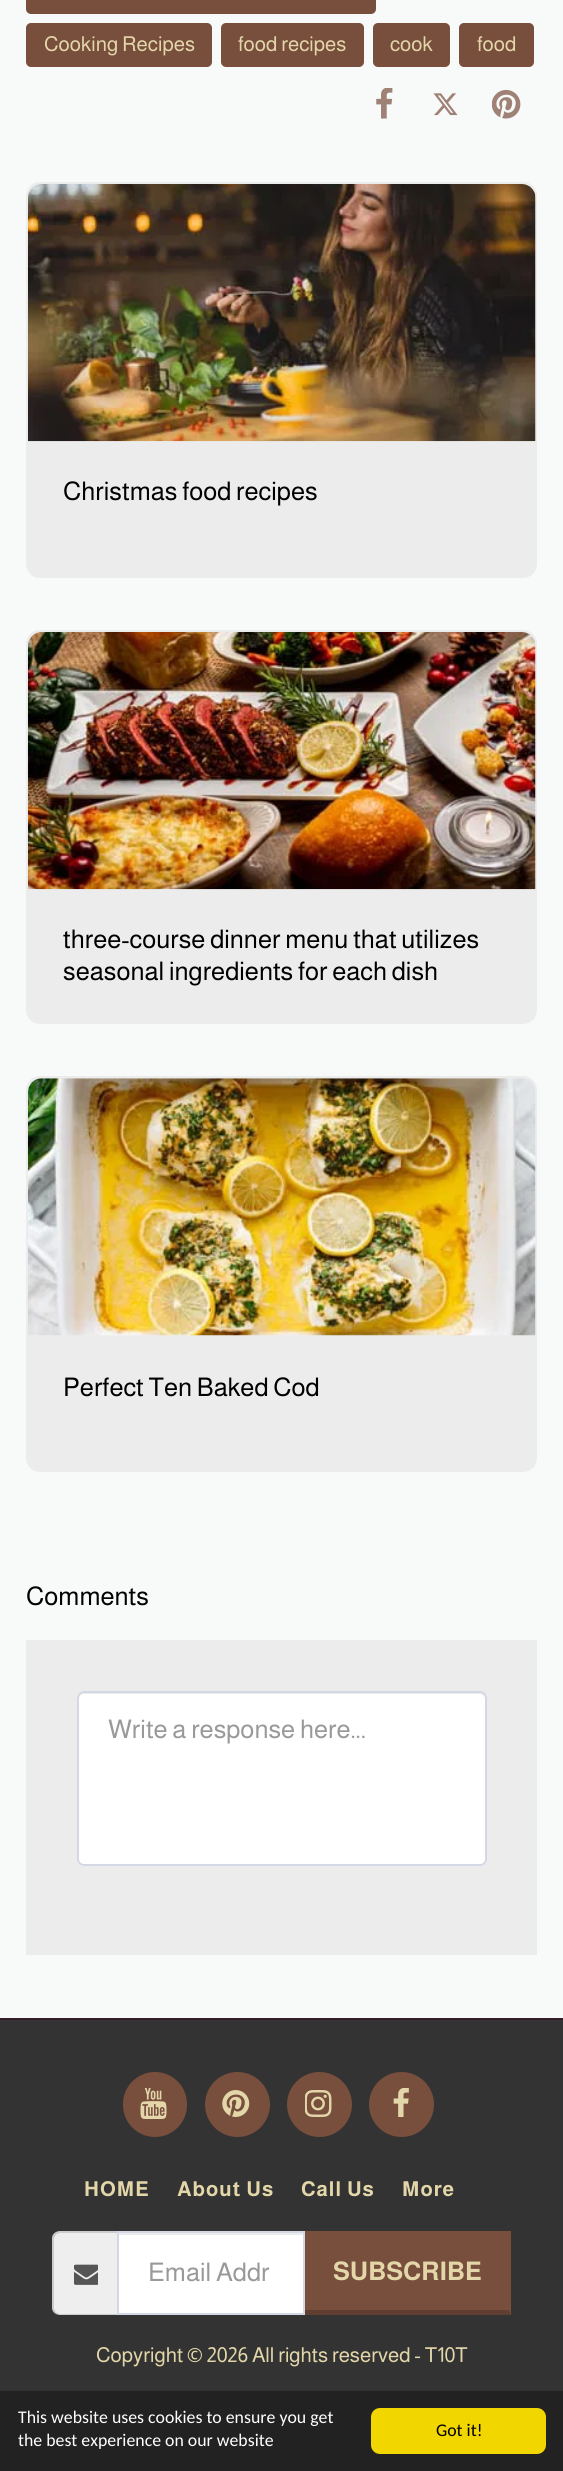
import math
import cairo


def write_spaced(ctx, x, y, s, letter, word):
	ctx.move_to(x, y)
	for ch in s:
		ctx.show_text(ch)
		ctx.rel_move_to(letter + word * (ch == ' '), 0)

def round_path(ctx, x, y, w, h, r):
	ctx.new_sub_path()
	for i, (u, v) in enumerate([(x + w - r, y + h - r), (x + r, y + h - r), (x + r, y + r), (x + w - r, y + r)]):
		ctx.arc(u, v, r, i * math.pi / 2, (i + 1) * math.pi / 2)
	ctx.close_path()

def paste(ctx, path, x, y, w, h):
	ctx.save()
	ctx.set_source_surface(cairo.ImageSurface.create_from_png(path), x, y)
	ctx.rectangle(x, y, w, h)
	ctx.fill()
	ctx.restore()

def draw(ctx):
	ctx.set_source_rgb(0.212, 0.106, 0.157)
	ctx.paint()
	ctx.set_source_rgb(0.969, 0.976, 0.973)
	ctx.rectangle(0, 0, 563, 2018)
	ctx.fill()
	ctx.set_source_rgb(0.471, 0.306, 0.239)
	round_path(ctx, 26, -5, 350, 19, 5)
	ctx.fill()
	round_path(ctx, 26, 23, 186, 44, 5)
	ctx.fill()
	ctx.select_font_face('Almarai')
	ctx.set_font_size(20.6)
	ctx.set_source_rgb(0.89, 0.843, 0.663)
	ctx.move_to(44, 51)
	ctx.show_text('Cooking Recipes')
	ctx.set_source_rgb(0.471, 0.306, 0.239)
	round_path(ctx, 221, 23, 143, 44, 5)
	ctx.fill()
	ctx.set_source_rgb(0.89, 0.843, 0.663)
	ctx.move_to(238, 51)
	ctx.show_text('food recipes')
	ctx.set_source_rgb(0.471, 0.306, 0.239)
	round_path(ctx, 373, 23, 77, 44, 5)
	ctx.fill()
	ctx.set_source_rgb(0.89, 0.843, 0.663)
	ctx.move_to(390, 51)
	ctx.show_text('cook')
	ctx.set_source_rgb(0.471, 0.306, 0.239)
	round_path(ctx, 459, 23, 75, 44, 5)
	ctx.fill()
	ctx.set_source_rgb(0.89, 0.843, 0.663)
	ctx.move_to(477, 51)
	ctx.show_text('food')
	paste(ctx, 'media/1.png', 376, 88, 17, 31)
	paste(ctx, 'media/2.png', 433, 93, 25, 23)
	paste(ctx, 'media/3.png', 492, 89, 29, 30)
	ctx.set_source_rgb(0.922, 0.922, 0.922)
	round_path(ctx, 27, 183, 509, 394, 13)
	ctx.fill_preserve()
	ctx.stroke()
	paste(ctx, 'media/4.png', 28, 184, 508, 258)
	ctx.set_font_size(25.75)
	ctx.set_source_rgb(0, 0, 0)
	ctx.move_to(63, 500)
	ctx.show_text('Christmas food recipes')
	ctx.set_source_rgb(0.922, 0.922, 0.922)
	round_path(ctx, 27, 631, 509, 392, 13)
	ctx.fill_preserve()
	ctx.stroke()
	paste(ctx, 'media/5.png', 28, 632, 508, 258)
	ctx.set_source_rgb(0, 0, 0)
	ctx.move_to(63, 948)
	ctx.show_text('three-course dinner menu that utilizes')
	ctx.move_to(63, 980)
	ctx.show_text('seasonal ingredients for each dish')
	ctx.set_source_rgb(0.922, 0.922, 0.922)
	round_path(ctx, 27, 1077, 509, 394, 13)
	ctx.fill_preserve()
	ctx.stroke()
	paste(ctx, 'media/6.png', 28, 1078, 508, 258)
	ctx.set_source_rgb(0, 0, 0)
	ctx.move_to(63, 1396)
	ctx.show_text('Perfect Ten Baked Cod')
	ctx.move_to(26, 1605)
	ctx.show_text('Comments')
	ctx.set_source_rgb(0.922, 0.922, 0.922)
	ctx.rectangle(26, 1640, 511, 315)
	ctx.fill()
	ctx.set_source_rgb(1, 1, 1)
	round_path(ctx, 77, 1691, 410, 175, 7)
	ctx.fill()
	ctx.set_source_rgb(0.925, 0.925, 0.925)
	ctx.new_path()
	ctx.move_to(84, 1694)
	ctx.line_to(480, 1694)
	ctx.curve_to(482, 1694, 485, 1696, 485, 1699)
	ctx.line_to(485, 1697)
	ctx.curve_to(485, 1694, 483, 1692, 480, 1692)
	ctx.line_to(84, 1692)
	ctx.curve_to(81, 1692, 79, 1694, 79, 1697)
	ctx.line_to(79, 1699)
	ctx.curve_to(79, 1696, 81, 1694, 84, 1694)
	ctx.close_path()
	ctx.fill()
	round_path(ctx, 78, 1692, 408, 173, 6)
	ctx.set_source_rgb(0.831, 0.843, 0.898)
	ctx.stroke()
	ctx.set_source_rgb(0.6, 0.6, 0.6)
	ctx.move_to(108, 1738)
	ctx.show_text('Write a response here...')
	ctx.set_source_rgb(0.2, 0.2, 0.2)
	ctx.rectangle(0, 2020, 563, 371)
	ctx.fill()
	ctx.set_source_rgb(0.471, 0.306, 0.239)
	round_path(ctx, 124, 2073, 62, 63, 31)
	ctx.fill_preserve()
	ctx.stroke()
	paste(ctx, 'media/7.png', 140, 2088, 27, 31)
	ctx.arc(237.5, 2104.5, 31.5, 0, 2 * math.pi)
	ctx.fill_preserve()
	ctx.stroke()
	paste(ctx, 'media/8.png', 222, 2090, 28, 27)
	ctx.arc(319.5, 2104.5, 31.5, 0, 2 * math.pi)
	ctx.fill_preserve()
	ctx.stroke()
	paste(ctx, 'media/9.png', 305, 2090, 27, 27)
	ctx.arc(401.5, 2104.5, 31.5, 0, 2 * math.pi)
	ctx.fill_preserve()
	ctx.stroke()
	paste(ctx, 'media/10.png', 393, 2088, 16, 29)
	ctx.select_font_face('Almarai', cairo.FONT_SLANT_NORMAL, cairo.FONT_WEIGHT_BOLD)
	ctx.set_font_size(20.6)
	ctx.set_source_rgb(0.89, 0.843, 0.663)
	for x, y, s in [
		(84, 2196, 'HOME'),
		(177, 2196, 'About Us'),
		(301, 2196, 'Call Us'),
		(402, 2196, 'More'),
	]:
		write_spaced(ctx, x, y, s, 1, 0)
	ctx.set_source_rgb(0.933, 0.933, 0.933)
	ctx.new_path()
	ctx.move_to(59, 2233)
	ctx.line_to(117, 2233)
	ctx.line_to(117, 2314)
	ctx.line_to(59, 2314)
	ctx.curve_to(56, 2314, 54, 2312, 54, 2309)
	ctx.line_to(54, 2238)
	ctx.curve_to(54, 2235, 56, 2233, 59, 2233)
	ctx.close_path()
	ctx.fill()
	ctx.set_source_rgb(0.8, 0.8, 0.8)
	ctx.set_fill_rule(cairo.FILL_RULE_EVEN_ODD)
	ctx.new_path()
	ctx.move_to(60, 2231)
	ctx.line_to(117, 2231)
	ctx.line_to(117, 2315)
	ctx.line_to(60, 2315)
	ctx.curve_to(56, 2315, 52, 2312, 52, 2308)
	ctx.line_to(52, 2238)
	ctx.curve_to(52, 2234, 56, 2231, 60, 2231)
	ctx.close_path()
	ctx.move_to(60, 2233)
	ctx.line_to(117, 2233)
	ctx.line_to(117, 2314)
	ctx.line_to(60, 2314)
	ctx.curve_to(57, 2314, 54, 2311, 54, 2308)
	ctx.line_to(54, 2238)
	ctx.curve_to(54, 2235, 57, 2233, 60, 2233)
	ctx.close_path()
	ctx.fill()
	paste(ctx, 'media/11.png', 74, 2264, 24, 21)
	ctx.set_source_rgb(1, 1, 1)
	ctx.rectangle(119, 2235, 184, 78)
	ctx.fill()
	ctx.set_source_rgb(0.925, 0.925, 0.925)
	ctx.rectangle(119, 2233, 184, 2)
	ctx.fill()
	ctx.set_source_rgb(0.471, 0.306, 0.239)
	ctx.rectangle(305, 2231, 206, 84)
	ctx.fill()
	ctx.set_source_rgb(0.376, 0.243, 0.192)
	ctx.set_fill_rule(cairo.FILL_RULE_WINDING)
	ctx.new_path()
	ctx.move_to(511, 2315)
	ctx.line_to(303, 2315)
	ctx.line_to(304, 2310)
	ctx.line_to(509, 2310)
	ctx.close_path()
	ctx.fill()
	ctx.rectangle(118, 2232, 186, 82)
	ctx.set_source_rgb(0.831, 0.843, 0.898)
	ctx.stroke()
	ctx.select_font_face('Almarai')
	ctx.set_font_size(25.75)
	ctx.set_source_rgb(0.6, 0.6, 0.6)
	ctx.move_to(148, 2281)
	ctx.show_text('Email Addr')
	ctx.select_font_face('Almarai', cairo.FONT_SLANT_NORMAL, cairo.FONT_WEIGHT_BOLD)
	ctx.set_source_rgb(0.89, 0.843, 0.663)
	ctx.move_to(333, 2280)
	ctx.show_text('SUBSCRIBE')
	ctx.select_font_face('Almarai')
	ctx.set_font_size(20.6)
	ctx.move_to(96, 2362)
	ctx.show_text('Copyright © 2026 All rights reserved - T10T')
	ctx.set_source_rgb(0.133, 0.133, 0.133)
	ctx.rectangle(0, 2391, 563, 80)
	ctx.fill()
	ctx.select_font_face('Carlito')
	ctx.set_font_size(17.8)
	ctx.set_source_rgb(1, 1, 1)
	ctx.move_to(18, 2423)
	ctx.show_text('This website uses cookies to ensure you get')
	ctx.move_to(18, 2446)
	ctx.show_text('the best experience on our website')
	ctx.set_source_rgb(0.945, 0.839, 0)
	round_path(ctx, 371, 2408, 175, 46, 9)
	ctx.fill()
	ctx.set_source_rgb(0, 0, 0)
	ctx.move_to(436, 2436)
	ctx.show_text('Got it!')


surface = cairo.ImageSurface(cairo.FORMAT_RGB24, 563, 2471)
ctx = cairo.Context(surface)
options = cairo.FontOptions()
options.set_hint_metrics(cairo.HINT_METRICS_OFF)
options.set_hint_style(cairo.HINT_STYLE_NONE)
ctx.set_font_options(options)
ctx.set_miter_limit(4)
draw(ctx)
surface.write_to_png('image.png')
